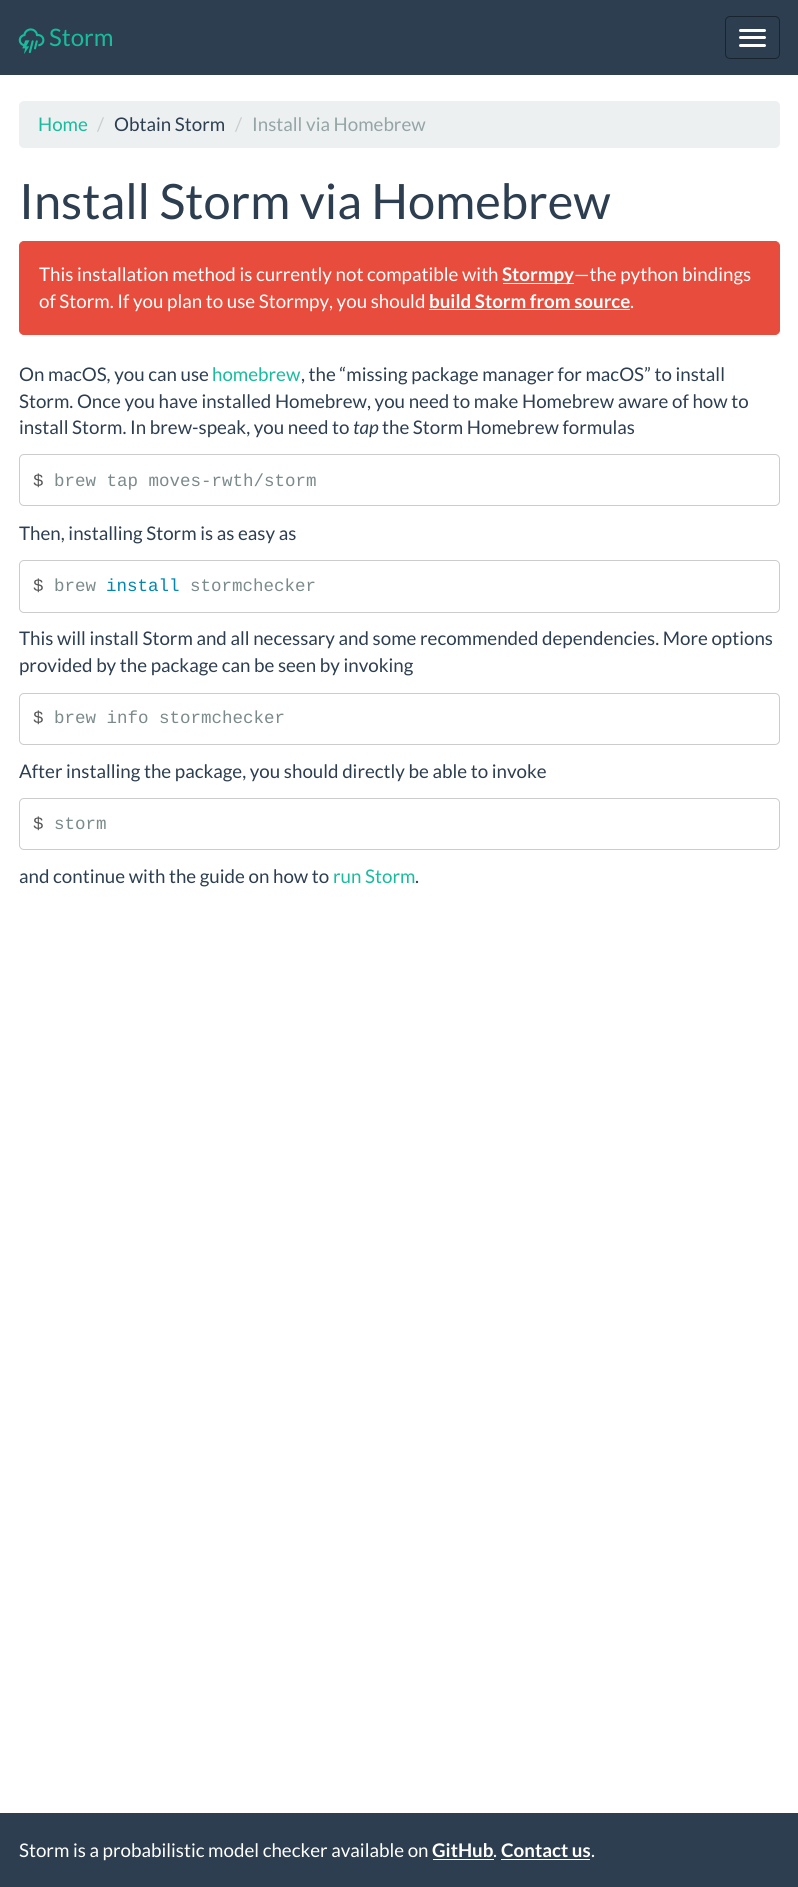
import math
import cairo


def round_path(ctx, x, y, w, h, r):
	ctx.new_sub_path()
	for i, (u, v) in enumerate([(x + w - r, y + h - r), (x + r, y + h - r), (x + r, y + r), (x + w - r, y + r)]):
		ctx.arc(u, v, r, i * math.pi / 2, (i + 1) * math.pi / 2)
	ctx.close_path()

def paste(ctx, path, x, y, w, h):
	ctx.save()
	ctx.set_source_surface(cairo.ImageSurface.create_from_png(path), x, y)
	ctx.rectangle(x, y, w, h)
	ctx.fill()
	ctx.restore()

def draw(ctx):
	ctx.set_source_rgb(1, 1, 1)
	ctx.paint()
	ctx.set_source_rgb(0.173, 0.243, 0.314)
	ctx.rectangle(0, 0, 798, 75)
	ctx.fill()
	paste(ctx, 'media/1.png', 18, 28, 27, 26)
	ctx.select_font_face('Lato')
	ctx.set_font_size(24)
	ctx.set_source_rgb(0.094, 0.737, 0.612)
	ctx.move_to(49, 46)
	ctx.show_text('Storm')
	round_path(ctx, 725.5, 16.5, 54, 42, 4.5)
	ctx.set_source_rgb(0.102, 0.141, 0.184)
	ctx.set_line_width(1)
	ctx.stroke()
	ctx.set_source_rgb(1, 1, 1)
	round_path(ctx, 739, 29, 27, 3, 1.5)
	ctx.fill()
	round_path(ctx, 739, 36, 27, 3, 1.5)
	ctx.fill()
	round_path(ctx, 739, 44, 27, 3, 1.5)
	ctx.fill()
	ctx.set_source_rgb(0.925, 0.941, 0.945)
	round_path(ctx, 19, 101, 761, 47, 5)
	ctx.fill()
	ctx.set_font_size(18.75)
	ctx.set_source_rgb(0.094, 0.737, 0.612)
	ctx.move_to(38, 131)
	ctx.show_text('Home')
	ctx.set_source_rgb(0.8, 0.8, 0.8)
	ctx.move_to(97, 131)
	ctx.show_text('/')
	ctx.set_source_rgb(0.173, 0.243, 0.314)
	ctx.move_to(114, 131)
	ctx.show_text('Obtain Storm')
	ctx.set_source_rgb(0.8, 0.8, 0.8)
	ctx.move_to(235, 131)
	ctx.show_text('/')
	ctx.set_source_rgb(0.584, 0.647, 0.651)
	ctx.move_to(252, 131)
	ctx.show_text('Install via Homebrew')
	ctx.set_font_size(48.75)
	ctx.set_source_rgb(0.173, 0.243, 0.314)
	ctx.move_to(19, 219)
	ctx.show_text('Install Storm via Homebrew')
	ctx.set_source_rgb(0.906, 0.298, 0.235)
	round_path(ctx, 19.5, 241.5, 760, 93, 4.5)
	ctx.fill_preserve()
	ctx.stroke()
	ctx.set_font_size(18.75)
	ctx.set_source_rgb(1, 1, 1)
	ctx.move_to(39, 281)
	ctx.show_text('This installation method is currently not compatible with')
	ctx.rectangle(503, 283, 71, 1)
	ctx.fill()
	ctx.select_font_face('Lato', cairo.FONT_SLANT_NORMAL, cairo.FONT_WEIGHT_BOLD)
	ctx.move_to(502, 281)
	ctx.show_text('Stormpy')
	ctx.select_font_face('Lato')
	ctx.move_to(574, 281)
	ctx.show_text('—the python bindings')
	ctx.move_to(39, 308)
	ctx.show_text('of Storm. If you plan to use Stormpy, you should')
	ctx.select_font_face('Lato', cairo.FONT_SLANT_NORMAL, cairo.FONT_WEIGHT_BOLD)
	ctx.move_to(429, 308)
	ctx.show_text('build Storm from source')
	ctx.rectangle(429, 309, 201, 1)
	ctx.fill()
	ctx.select_font_face('Lato')
	ctx.move_to(630, 308)
	ctx.show_text('.')
	ctx.set_source_rgb(0.173, 0.243, 0.314)
	ctx.move_to(19, 381)
	ctx.show_text('On macOS, you can use')
	ctx.set_source_rgb(0.094, 0.737, 0.612)
	ctx.move_to(212, 381)
	ctx.show_text('homebrew')
	ctx.set_source_rgb(0.173, 0.243, 0.314)
	for x, y, s in [
		(301, 381, ', the “missing package manager for macOS” to install'),
		(19, 408, 'Storm. Once you have installed Homebrew, you need to make Homebrew aware of how to'),
		(19, 434, 'install Storm. In brew-speak, you need to'),
	]:
		ctx.move_to(x, y)
		ctx.show_text(s)
	ctx.select_font_face('Lato', cairo.FONT_SLANT_ITALIC)
	ctx.move_to(353, 434)
	ctx.show_text('tap')
	ctx.select_font_face('Lato')
	ctx.move_to(382, 434)
	ctx.show_text('the Storm Homebrew formulas')
	round_path(ctx, 19.5, 454.5, 760, 51, 4.5)
	ctx.set_source_rgb(0.8, 0.8, 0.8)
	ctx.stroke()
	ctx.select_font_face('Liberation Mono')
	ctx.set_font_size(17.5)
	ctx.set_source_rgb(0.333, 0.333, 0.333)
	ctx.move_to(33, 486)
	ctx.show_text('$')
	ctx.set_source_rgb(0.482, 0.541, 0.545)
	ctx.move_to(54, 486)
	ctx.show_text('brew tap moves-rwth/storm')
	ctx.select_font_face('Lato')
	ctx.set_font_size(18.75)
	ctx.set_source_rgb(0.173, 0.243, 0.314)
	ctx.move_to(19, 540)
	ctx.show_text('Then, installing Storm is as easy as')
	round_path(ctx, 19.5, 560.5, 760, 52, 4.5)
	ctx.set_source_rgb(0.8, 0.8, 0.8)
	ctx.stroke()
	ctx.select_font_face('Liberation Mono')
	ctx.set_font_size(17.5)
	ctx.set_source_rgb(0.333, 0.333, 0.333)
	ctx.move_to(33, 591)
	ctx.show_text('$')
	ctx.set_source_rgb(0.482, 0.541, 0.545)
	ctx.move_to(54, 591)
	ctx.show_text('brew')
	ctx.set_source_rgb(0, 0.525, 0.702)
	ctx.move_to(106, 591)
	ctx.show_text('install')
	ctx.set_source_rgb(0.482, 0.541, 0.545)
	ctx.move_to(190, 591)
	ctx.show_text('stormchecker')
	ctx.select_font_face('Lato')
	ctx.set_font_size(18.75)
	ctx.set_source_rgb(0.173, 0.243, 0.314)
	ctx.move_to(19, 645)
	ctx.show_text('This will install Storm and all necessary and some recommended dependencies. More options')
	ctx.move_to(19, 672)
	ctx.show_text('provided by the package can be seen by invoking')
	round_path(ctx, 19.5, 693.5, 760, 51, 4.5)
	ctx.set_source_rgb(0.8, 0.8, 0.8)
	ctx.stroke()
	ctx.select_font_face('Liberation Mono')
	ctx.set_font_size(17.5)
	ctx.set_source_rgb(0.333, 0.333, 0.333)
	ctx.move_to(33, 723)
	ctx.show_text('$')
	ctx.set_source_rgb(0.482, 0.541, 0.545)
	ctx.move_to(54, 723)
	ctx.show_text('brew info stormchecker')
	ctx.select_font_face('Lato')
	ctx.set_font_size(18.75)
	ctx.set_source_rgb(0.173, 0.243, 0.314)
	ctx.move_to(19, 778)
	ctx.show_text('After installing the package, you should directly be able to invoke')
	round_path(ctx, 19.5, 798.5, 760, 51, 4.5)
	ctx.set_source_rgb(0.8, 0.8, 0.8)
	ctx.stroke()
	ctx.select_font_face('Liberation Mono')
	ctx.set_font_size(17.5)
	ctx.set_source_rgb(0.333, 0.333, 0.333)
	ctx.move_to(33, 829)
	ctx.show_text('$')
	ctx.set_source_rgb(0.482, 0.541, 0.545)
	ctx.move_to(54, 829)
	ctx.show_text('storm')
	ctx.select_font_face('Lato')
	ctx.set_font_size(18.75)
	ctx.set_source_rgb(0.173, 0.243, 0.314)
	ctx.move_to(19, 883)
	ctx.show_text('and continue with the guide on how to')
	ctx.set_source_rgb(0.094, 0.737, 0.612)
	ctx.move_to(333, 883)
	ctx.show_text('run Storm')
	ctx.set_source_rgb(0.173, 0.243, 0.314)
	ctx.move_to(415, 883)
	ctx.show_text('.')
	ctx.rectangle(0, 1813, 798, 74)
	ctx.fill()
	ctx.set_source_rgb(1, 1, 1)
	ctx.move_to(19, 1857)
	ctx.show_text('Storm is a probabilistic model checker available on')
	ctx.select_font_face('Lato', cairo.FONT_SLANT_NORMAL, cairo.FONT_WEIGHT_BOLD)
	ctx.move_to(432, 1857)
	ctx.show_text('GitHub')
	ctx.rectangle(433, 1859, 61, 1)
	ctx.fill()
	ctx.select_font_face('Lato')
	ctx.move_to(493, 1857)
	ctx.show_text('.')
	ctx.select_font_face('Lato', cairo.FONT_SLANT_NORMAL, cairo.FONT_WEIGHT_BOLD)
	ctx.move_to(501, 1857)
	ctx.show_text('Contact us')
	ctx.rectangle(501, 1859, 89, 1)
	ctx.fill()
	ctx.select_font_face('Lato')
	ctx.move_to(591, 1857)
	ctx.show_text('.')


surface = cairo.ImageSurface(cairo.FORMAT_RGB24, 798, 1887)
ctx = cairo.Context(surface)
options = cairo.FontOptions()
options.set_hint_metrics(cairo.HINT_METRICS_OFF)
options.set_hint_style(cairo.HINT_STYLE_NONE)
ctx.set_font_options(options)
ctx.set_miter_limit(4)
draw(ctx)
surface.write_to_png('image.png')
